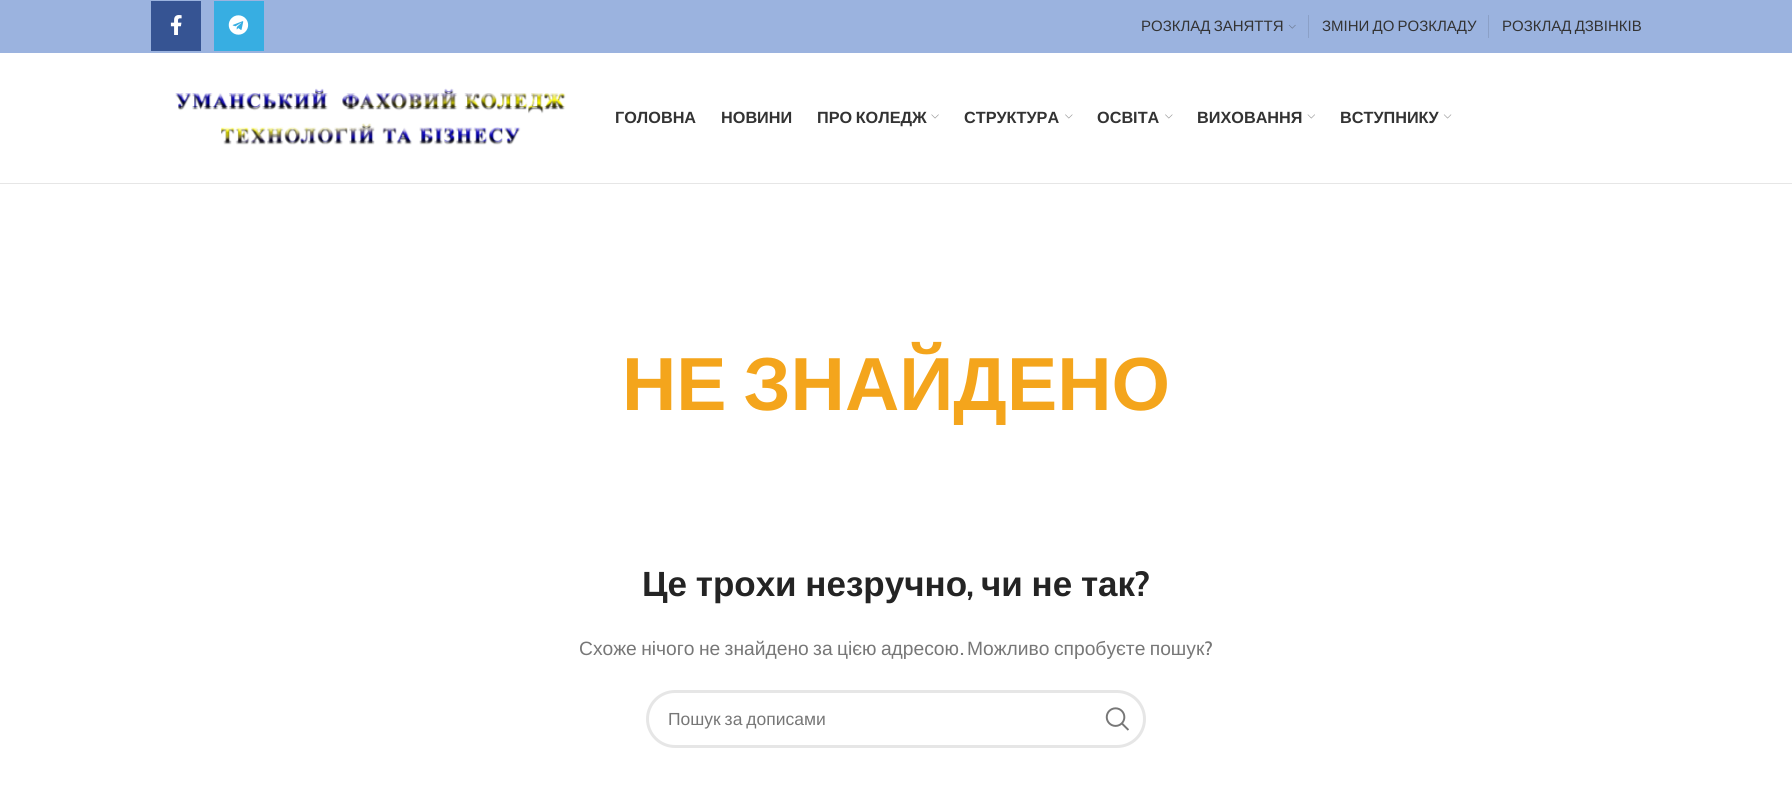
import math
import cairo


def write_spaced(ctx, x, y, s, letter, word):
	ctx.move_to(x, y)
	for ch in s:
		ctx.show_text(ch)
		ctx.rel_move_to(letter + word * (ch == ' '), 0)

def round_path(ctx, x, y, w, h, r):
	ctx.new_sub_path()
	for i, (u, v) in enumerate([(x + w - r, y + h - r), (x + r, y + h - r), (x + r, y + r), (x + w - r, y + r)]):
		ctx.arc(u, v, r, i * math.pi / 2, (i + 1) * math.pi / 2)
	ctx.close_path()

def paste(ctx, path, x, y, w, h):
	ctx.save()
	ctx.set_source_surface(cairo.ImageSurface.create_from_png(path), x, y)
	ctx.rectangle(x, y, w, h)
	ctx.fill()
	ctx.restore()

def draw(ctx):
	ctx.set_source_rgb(1, 1, 1)
	ctx.paint()
	ctx.set_source_rgb(0.608, 0.702, 0.875)
	ctx.rectangle(0, 0, 1792, 53)
	ctx.fill()
	ctx.set_source_rgb(0.212, 0.329, 0.576)
	ctx.rectangle(151, 1, 50, 50)
	ctx.fill()
	paste(ctx, 'media/1.png', 170, 15, 12, 20)
	ctx.set_source_rgb(0.216, 0.682, 0.886)
	ctx.rectangle(214, 1, 50, 50)
	ctx.fill()
	paste(ctx, 'media/2.png', 228, 15, 21, 20)
	ctx.select_font_face('Liberation Sans')
	ctx.set_font_size(15)
	ctx.set_source_rgb(0.2, 0.2, 0.2)
	write_spaced(ctx, 1141, 31, 'РОЗКЛАД ЗАНЯТТЯ', 0, -1)
	paste(ctx, 'media/3.png', 1288, 24, 8, 5)
	ctx.set_source_rgb(0.545, 0.627, 0.78)
	ctx.rectangle(1308, 15, 1, 23)
	ctx.fill()
	ctx.set_source_rgb(0.2, 0.2, 0.2)
	write_spaced(ctx, 1322, 31, 'ЗМІНИ ДО РОЗКЛАДУ', 0, -1)
	ctx.set_source_rgb(0.545, 0.627, 0.78)
	ctx.rectangle(1488, 15, 1, 23)
	ctx.fill()
	ctx.set_source_rgb(0.2, 0.2, 0.2)
	write_spaced(ctx, 1502, 31, 'РОЗКЛАД ДЗВІНКІВ', 0, -1)
	ctx.set_source_rgb(0.902, 0.902, 0.902)
	ctx.rectangle(0, 183, 1792, 1)
	ctx.fill()
	paste(ctx, 'media/4.png', 175, 88, 391, 57)
	ctx.select_font_face('Liberation Sans', cairo.FONT_SLANT_NORMAL, cairo.FONT_WEIGHT_BOLD)
	ctx.set_font_size(16.25)
	ctx.set_source_rgb(0.2, 0.2, 0.2)
	ctx.move_to(615, 123)
	ctx.show_text('ГОЛОВНА')
	ctx.move_to(721, 123)
	ctx.show_text('НОВИНИ')
	write_spaced(ctx, 817, 123, 'ПРО КОЛЕДЖ', 0, -1)
	paste(ctx, 'media/5.png', 931, 114, 8, 5)
	ctx.move_to(964, 123)
	ctx.show_text('СТРУКТУРА')
	paste(ctx, 'media/6.png', 1065, 114, 8, 5)
	ctx.move_to(1097, 123)
	ctx.show_text('ОСВІТА')
	paste(ctx, 'media/6.png', 1165, 114, 8, 5)
	ctx.move_to(1197, 123)
	ctx.show_text('ВИХОВАННЯ')
	paste(ctx, 'media/7.png', 1307, 114, 8, 5)
	ctx.move_to(1340, 123)
	ctx.show_text('ВСТУПНИКУ')
	paste(ctx, 'media/8.png', 1443, 114, 9, 5)
	ctx.set_font_size(75.25)
	ctx.set_source_rgb(0.957, 0.647, 0.11)
	write_spaced(ctx, 622, 410, 'НЕ ЗНАЙДЕНО', 0, -4)
	ctx.set_font_size(35)
	ctx.set_source_rgb(0.141, 0.141, 0.141)
	write_spaced(ctx, 642, 596, 'Це трохи незручно', 0, -1)
	ctx.select_font_face('Cabin SemiBold')
	ctx.move_to(966, 596)
	ctx.show_text(',')
	ctx.select_font_face('Liberation Sans', cairo.FONT_SLANT_NORMAL, cairo.FONT_WEIGHT_BOLD)
	write_spaced(ctx, 981, 596, 'чи не так', 0, -1)
	ctx.select_font_face('Cabin SemiBold')
	ctx.move_to(1134, 596)
	ctx.show_text('?')
	ctx.select_font_face('Liberation Sans')
	ctx.set_font_size(19.25)
	ctx.set_source_rgb(0.467, 0.467, 0.467)
	write_spaced(ctx, 579, 655, 'Схоже нічого не знайдено за цією адресою', 0, -1)
	ctx.select_font_face('Cabin')
	ctx.move_to(960, 655)
	ctx.show_text('.')
	ctx.select_font_face('Liberation Sans')
	write_spaced(ctx, 967, 655, 'Можливо спробуєте пошук', 0, -1)
	ctx.select_font_face('Cabin')
	ctx.move_to(1204, 655)
	ctx.show_text('?')
	round_path(ctx, 647.5, 691.5, 497, 55, 27.5)
	ctx.set_source_rgb(0.902, 0.902, 0.902)
	ctx.set_line_width(3)
	ctx.stroke()
	ctx.select_font_face('Liberation Sans')
	ctx.set_font_size(17.5)
	ctx.set_source_rgb(0.467, 0.467, 0.467)
	write_spaced(ctx, 668, 725, 'Пошук за дописами', 0, -1)
	paste(ctx, 'media/9.png', 1105, 707, 24, 24)


surface = cairo.ImageSurface(cairo.FORMAT_RGB24, 1792, 797)
ctx = cairo.Context(surface)
options = cairo.FontOptions()
options.set_hint_metrics(cairo.HINT_METRICS_OFF)
options.set_hint_style(cairo.HINT_STYLE_NONE)
ctx.set_font_options(options)
ctx.set_miter_limit(4)
draw(ctx)
surface.write_to_png('image.png')
